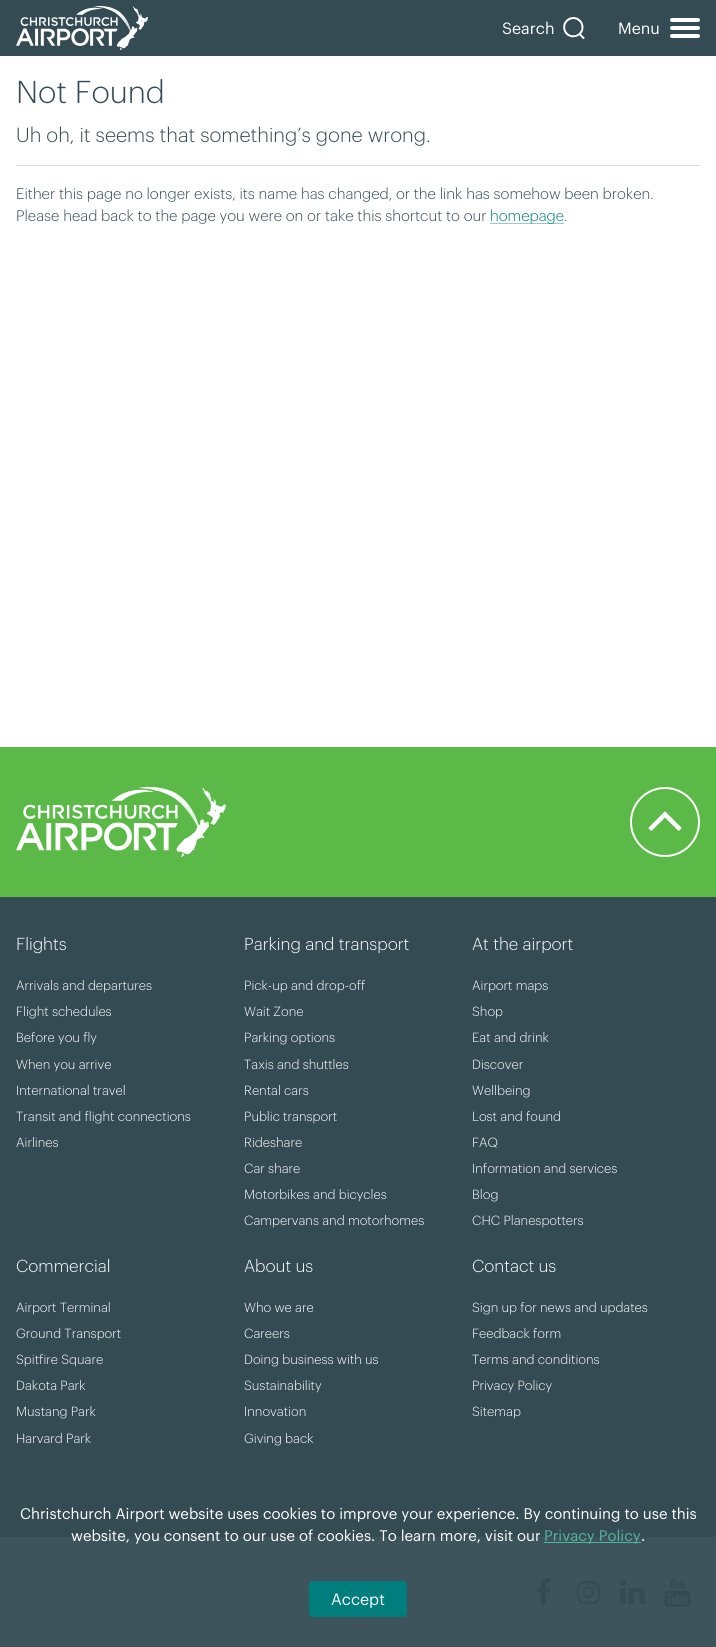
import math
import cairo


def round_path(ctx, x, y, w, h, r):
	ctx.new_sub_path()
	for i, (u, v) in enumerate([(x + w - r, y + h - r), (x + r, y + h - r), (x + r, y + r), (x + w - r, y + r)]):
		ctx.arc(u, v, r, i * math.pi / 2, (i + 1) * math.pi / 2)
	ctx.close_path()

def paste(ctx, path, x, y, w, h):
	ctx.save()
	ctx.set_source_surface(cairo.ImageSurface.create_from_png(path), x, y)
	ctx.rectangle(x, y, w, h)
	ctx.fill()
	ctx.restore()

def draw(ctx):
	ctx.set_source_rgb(1, 1, 1)
	ctx.paint()
	ctx.set_source_rgb(0.204, 0.294, 0.329)
	ctx.rectangle(0, 0, 716, 56)
	ctx.fill()
	paste(ctx, 'media/1.png', 16, 6, 132, 44)
	ctx.select_font_face('Graphik')
	ctx.set_font_size(16)
	ctx.set_source_rgb(1, 1, 1)
	ctx.move_to(502, 34)
	ctx.show_text('Search')
	paste(ctx, 'media/2.png', 563, 17, 22, 22)
	ctx.move_to(618, 34)
	ctx.show_text('Menu')
	round_path(ctx, 670, 26, 30, 4, 2)
	ctx.fill()
	round_path(ctx, 670, 18, 30, 4, 2)
	ctx.fill()
	round_path(ctx, 670, 34, 30, 4, 2)
	ctx.fill()
	ctx.select_font_face('Graphik Light')
	ctx.set_font_size(31)
	ctx.set_source_rgb(0.204, 0.294, 0.329)
	ctx.move_to(16, 103)
	ctx.show_text('Not Found')
	ctx.set_source_rgb(0.839, 0.859, 0.867)
	ctx.rectangle(16, 165, 684, 1)
	ctx.fill()
	ctx.set_font_size(20)
	ctx.set_source_rgb(0.204, 0.294, 0.329)
	ctx.move_to(16, 142)
	ctx.show_text('Uh oh, it seems that something’s gone wrong.')
	ctx.set_font_size(15)
	ctx.move_to(16, 199)
	ctx.show_text('Either this page no longer exists, its name has changed, or the link has somehow been broken.')
	ctx.move_to(16, 221)
	ctx.show_text('Please head back to the page you were on or take this shortcut to our')
	ctx.set_source_rgb(0.6, 0.796, 0.796)
	ctx.rectangle(490, 223, 74, 1)
	ctx.fill()
	ctx.set_source_rgb(0, 0.49, 0.49)
	ctx.move_to(490, 221)
	ctx.show_text('homepage')
	ctx.set_source_rgb(0.204, 0.294, 0.329)
	ctx.move_to(564, 221)
	ctx.show_text('.')
	ctx.rectangle(0, 897, 716, 640)
	ctx.fill()
	ctx.set_source_rgb(0.357, 0.729, 0.278)
	ctx.rectangle(0, 747, 716, 150)
	ctx.fill()
	paste(ctx, 'media/3.png', 16, 787, 210, 70)
	ctx.arc(665, 822, 34, 0, 2 * math.pi)
	ctx.set_source_rgb(1, 1, 1)
	ctx.stroke()
	paste(ctx, 'media/4.png', 648, 811, 34, 20)
	ctx.set_font_size(17)
	ctx.move_to(16, 950)
	ctx.show_text('Flights')
	ctx.set_font_size(13)
	for x, y, s in [
		(16, 990, 'Arrivals and departures'),
		(16, 1016, 'Flight schedules'),
		(16, 1042, 'Before you fly'),
		(16, 1069, 'When you arrive'),
		(16, 1095, 'International travel'),
		(16, 1121, 'Transit and flight connections'),
		(16, 1147, 'Airlines'),
	]:
		ctx.move_to(x, y)
		ctx.show_text(s)
	ctx.set_font_size(17)
	ctx.move_to(244, 950)
	ctx.show_text('Parking and transport')
	ctx.set_font_size(13)
	for x, y, s in [
		(244, 990, 'Pick-up and drop-off'),
		(244, 1016, 'Wait Zone'),
		(244, 1042, 'Parking options'),
		(244, 1069, 'Taxis and shuttles'),
		(244, 1095, 'Rental cars'),
		(244, 1121, 'Public transport'),
		(244, 1147, 'Rideshare'),
		(244, 1173, 'Car share'),
		(244, 1199, 'Motorbikes and bicycles'),
		(244, 1225, 'Campervans and motorhomes'),
	]:
		ctx.move_to(x, y)
		ctx.show_text(s)
	ctx.set_font_size(17)
	ctx.move_to(472, 950)
	ctx.show_text('At the airport')
	ctx.set_font_size(13)
	for x, y, s in [
		(472, 990, 'Airport maps'),
		(472, 1016, 'Shop'),
		(472, 1042, 'Eat and drink'),
		(472, 1069, 'Discover'),
		(472, 1095, 'Wellbeing'),
		(472, 1121, 'Lost and found'),
		(472, 1147, 'FAQ'),
		(472, 1173, 'Information and services'),
		(472, 1199, 'Blog'),
		(472, 1225, 'CHC Planespotters'),
	]:
		ctx.move_to(x, y)
		ctx.show_text(s)
	ctx.set_font_size(17)
	ctx.move_to(16, 1272)
	ctx.show_text('Commercial')
	ctx.set_font_size(13)
	for x, y, s in [
		(16, 1312, 'Airport Terminal'),
		(16, 1338, 'Ground Transport'),
		(16, 1364, 'Spitfire Square'),
		(16, 1390, 'Dakota Park'),
		(16, 1416, 'Mustang Park'),
		(16, 1443, 'Harvard Park'),
	]:
		ctx.move_to(x, y)
		ctx.show_text(s)
	ctx.set_font_size(17)
	ctx.move_to(244, 1272)
	ctx.show_text('About us')
	ctx.set_font_size(13)
	for x, y, s in [
		(244, 1312, 'Who we are'),
		(244, 1338, 'Careers'),
		(244, 1364, 'Doing business with us'),
		(244, 1390, 'Sustainability'),
		(244, 1416, 'Innovation'),
		(244, 1443, 'Giving back'),
	]:
		ctx.move_to(x, y)
		ctx.show_text(s)
	ctx.set_font_size(17)
	ctx.move_to(472, 1272)
	ctx.show_text('Contact us')
	ctx.set_font_size(13)
	for x, y, s in [
		(472, 1312, 'Sign up for news and updates'),
		(472, 1338, 'Feedback form'),
		(472, 1364, 'Terms and conditions'),
		(472, 1390, 'Privacy Policy'),
		(472, 1416, 'Sitemap'),
	]:
		ctx.move_to(x, y)
		ctx.show_text(s)
	ctx.set_source_rgb(0.243, 0.329, 0.365)
	ctx.rectangle(0, 1537, 716, 110)
	ctx.fill()
	paste(ctx, 'media/5.png', 536, 1578, 15, 27)
	paste(ctx, 'media/6.png', 577, 1581, 23, 23)
	paste(ctx, 'media/7.png', 620, 1580, 25, 24)
	paste(ctx, 'media/8.png', 664, 1578, 27, 29)
	ctx.select_font_face('Graphik')
	ctx.set_font_size(15)
	ctx.set_source_rgb(1, 1, 1)
	ctx.move_to(20, 1519)
	ctx.show_text('Christchurch Airport website uses cookies to improve your experience. By continuing to use this')
	ctx.move_to(71, 1541)
	ctx.show_text('website, you consent to our use of cookies. To learn more, visit our')
	ctx.set_source_rgb(0.322, 0.71, 0.6)
	ctx.rectangle(544, 1542, 97, 1)
	ctx.fill()
	ctx.move_to(544, 1541)
	ctx.show_text('Privacy Policy')
	ctx.set_source_rgb(1, 1, 1)
	ctx.move_to(641, 1541)
	ctx.show_text('.')
	ctx.set_source_rgb(0, 0.49, 0.49)
	round_path(ctx, 309, 1581, 98, 36, 4)
	ctx.fill()
	ctx.set_font_size(16)
	ctx.set_source_rgb(1, 1, 1)
	ctx.move_to(331, 1605)
	ctx.show_text('Accept')


surface = cairo.ImageSurface(cairo.FORMAT_RGB24, 716, 1647)
ctx = cairo.Context(surface)
options = cairo.FontOptions()
options.set_hint_metrics(cairo.HINT_METRICS_OFF)
options.set_hint_style(cairo.HINT_STYLE_NONE)
ctx.set_font_options(options)
ctx.set_miter_limit(4)
draw(ctx)
surface.write_to_png('image.png')
